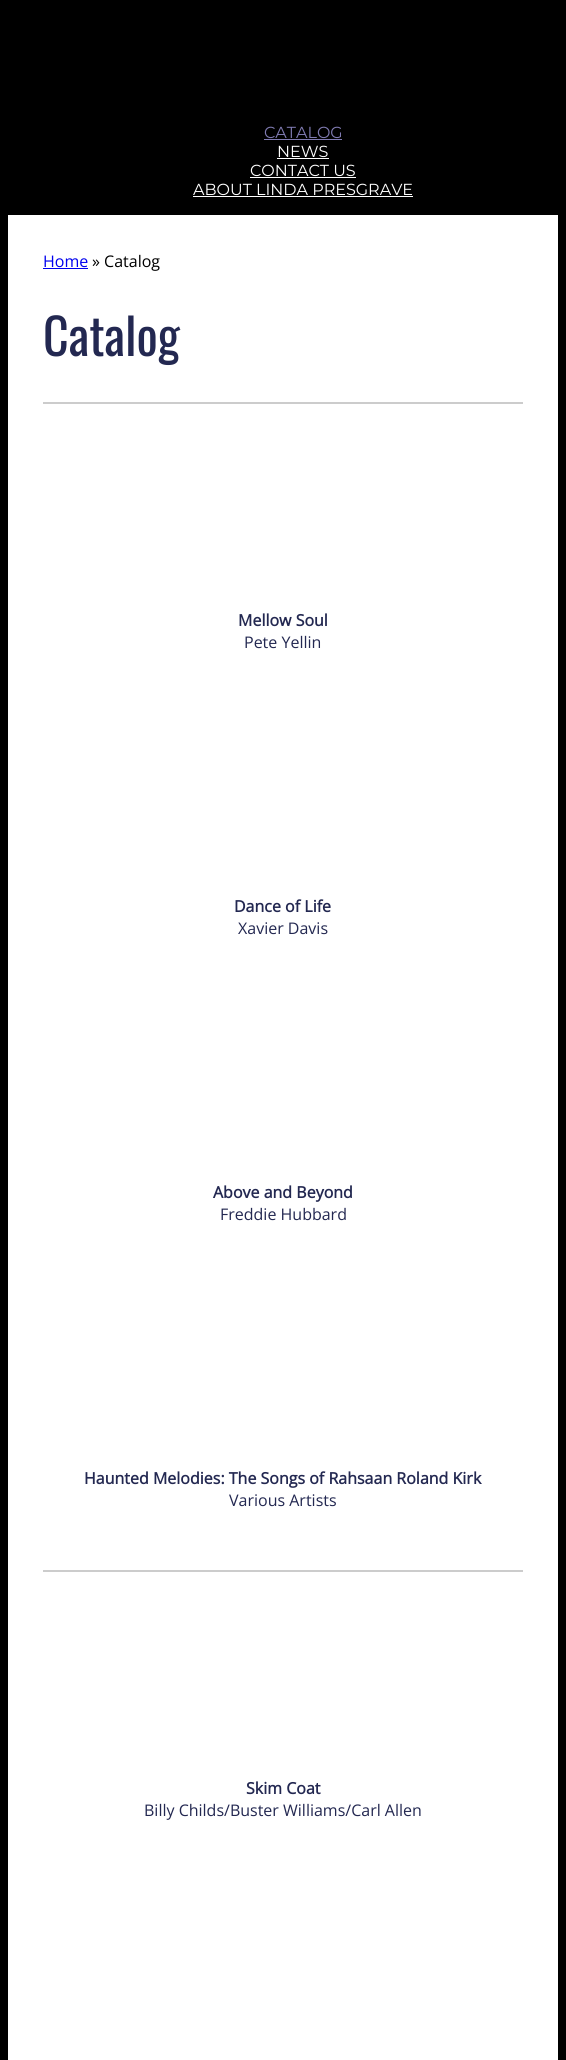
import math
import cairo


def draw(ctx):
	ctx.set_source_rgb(0, 0, 0)
	ctx.paint()
	ctx.select_font_face('Montserrat Thin')
	ctx.set_font_size(16)
	ctx.set_source_rgb(0.502, 0.482, 0.698)
	ctx.move_to(264, 138)
	ctx.show_text('CATALOG')
	ctx.rectangle(264, 139, 78, 1)
	ctx.fill()
	ctx.set_source_rgb(1, 1, 1)
	ctx.move_to(277, 157)
	ctx.show_text('NEWS')
	ctx.rectangle(277, 158, 52, 1)
	ctx.fill()
	ctx.move_to(250, 176)
	ctx.show_text('CONTACT US')
	ctx.rectangle(250, 177, 106, 1)
	ctx.fill()
	ctx.move_to(193, 195)
	ctx.show_text('ABOUT LINDA PRESGRAVE')
	ctx.rectangle(193, 196, 220, 1)
	ctx.fill()
	ctx.rectangle(8, 215, 550, 1845)
	ctx.fill()
	ctx.select_font_face('Open Sans')
	ctx.set_source_rgb(0, 0, 0.933)
	ctx.move_to(43, 267)
	ctx.show_text('Home')
	ctx.rectangle(43, 268, 45, 1)
	ctx.fill()
	ctx.set_source_rgb(0, 0, 0)
	ctx.move_to(92, 267)
	ctx.show_text('» Catalog')
	ctx.select_font_face('Oswald')
	ctx.set_font_size(50)
	ctx.set_source_rgb(0.137, 0.157, 0.318)
	ctx.move_to(43, 356)
	ctx.show_text('Catalog')
	ctx.set_source_rgb(0.8, 0.8, 0.8)
	ctx.rectangle(43, 402, 480, 2)
	ctx.fill()
	ctx.select_font_face('Open Sans', cairo.FONT_SLANT_NORMAL, cairo.FONT_WEIGHT_BOLD)
	ctx.set_font_size(16)
	ctx.set_source_rgb(0.137, 0.157, 0.318)
	ctx.move_to(238, 626)
	ctx.show_text('Mellow Soul')
	ctx.select_font_face('Open Sans')
	ctx.move_to(244, 648)
	ctx.show_text('Pete Yellin')
	ctx.select_font_face('Open Sans', cairo.FONT_SLANT_NORMAL, cairo.FONT_WEIGHT_BOLD)
	ctx.move_to(234, 912)
	ctx.show_text('Dance of Life')
	ctx.select_font_face('Open Sans')
	ctx.move_to(238, 934)
	ctx.show_text('Xavier Davis')
	ctx.select_font_face('Open Sans', cairo.FONT_SLANT_NORMAL, cairo.FONT_WEIGHT_BOLD)
	ctx.move_to(213, 1198)
	ctx.show_text('Above and Beyond')
	ctx.select_font_face('Open Sans')
	ctx.move_to(220, 1220)
	ctx.show_text('Freddie Hubbard')
	ctx.select_font_face('Open Sans', cairo.FONT_SLANT_NORMAL, cairo.FONT_WEIGHT_BOLD)
	ctx.move_to(84, 1484)
	ctx.show_text('Haunted Melodies: The Songs of Rahsaan Roland Kirk')
	ctx.select_font_face('Open Sans')
	ctx.move_to(229, 1506)
	ctx.show_text('Various Artists')
	ctx.set_source_rgb(0.8, 0.8, 0.8)
	ctx.rectangle(43, 1570, 480, 2)
	ctx.fill()
	ctx.select_font_face('Open Sans', cairo.FONT_SLANT_NORMAL, cairo.FONT_WEIGHT_BOLD)
	ctx.set_source_rgb(0.137, 0.157, 0.318)
	ctx.move_to(246, 1794)
	ctx.show_text('Skim Coat')
	ctx.select_font_face('Open Sans')
	ctx.move_to(144, 1816)
	ctx.show_text('Billy Childs/Buster Williams/Carl Allen')


surface = cairo.ImageSurface(cairo.FORMAT_RGB24, 566, 2060)
ctx = cairo.Context(surface)
options = cairo.FontOptions()
options.set_hint_metrics(cairo.HINT_METRICS_OFF)
options.set_hint_style(cairo.HINT_STYLE_NONE)
ctx.set_font_options(options)
ctx.set_miter_limit(4)
draw(ctx)
surface.write_to_png('image.png')
